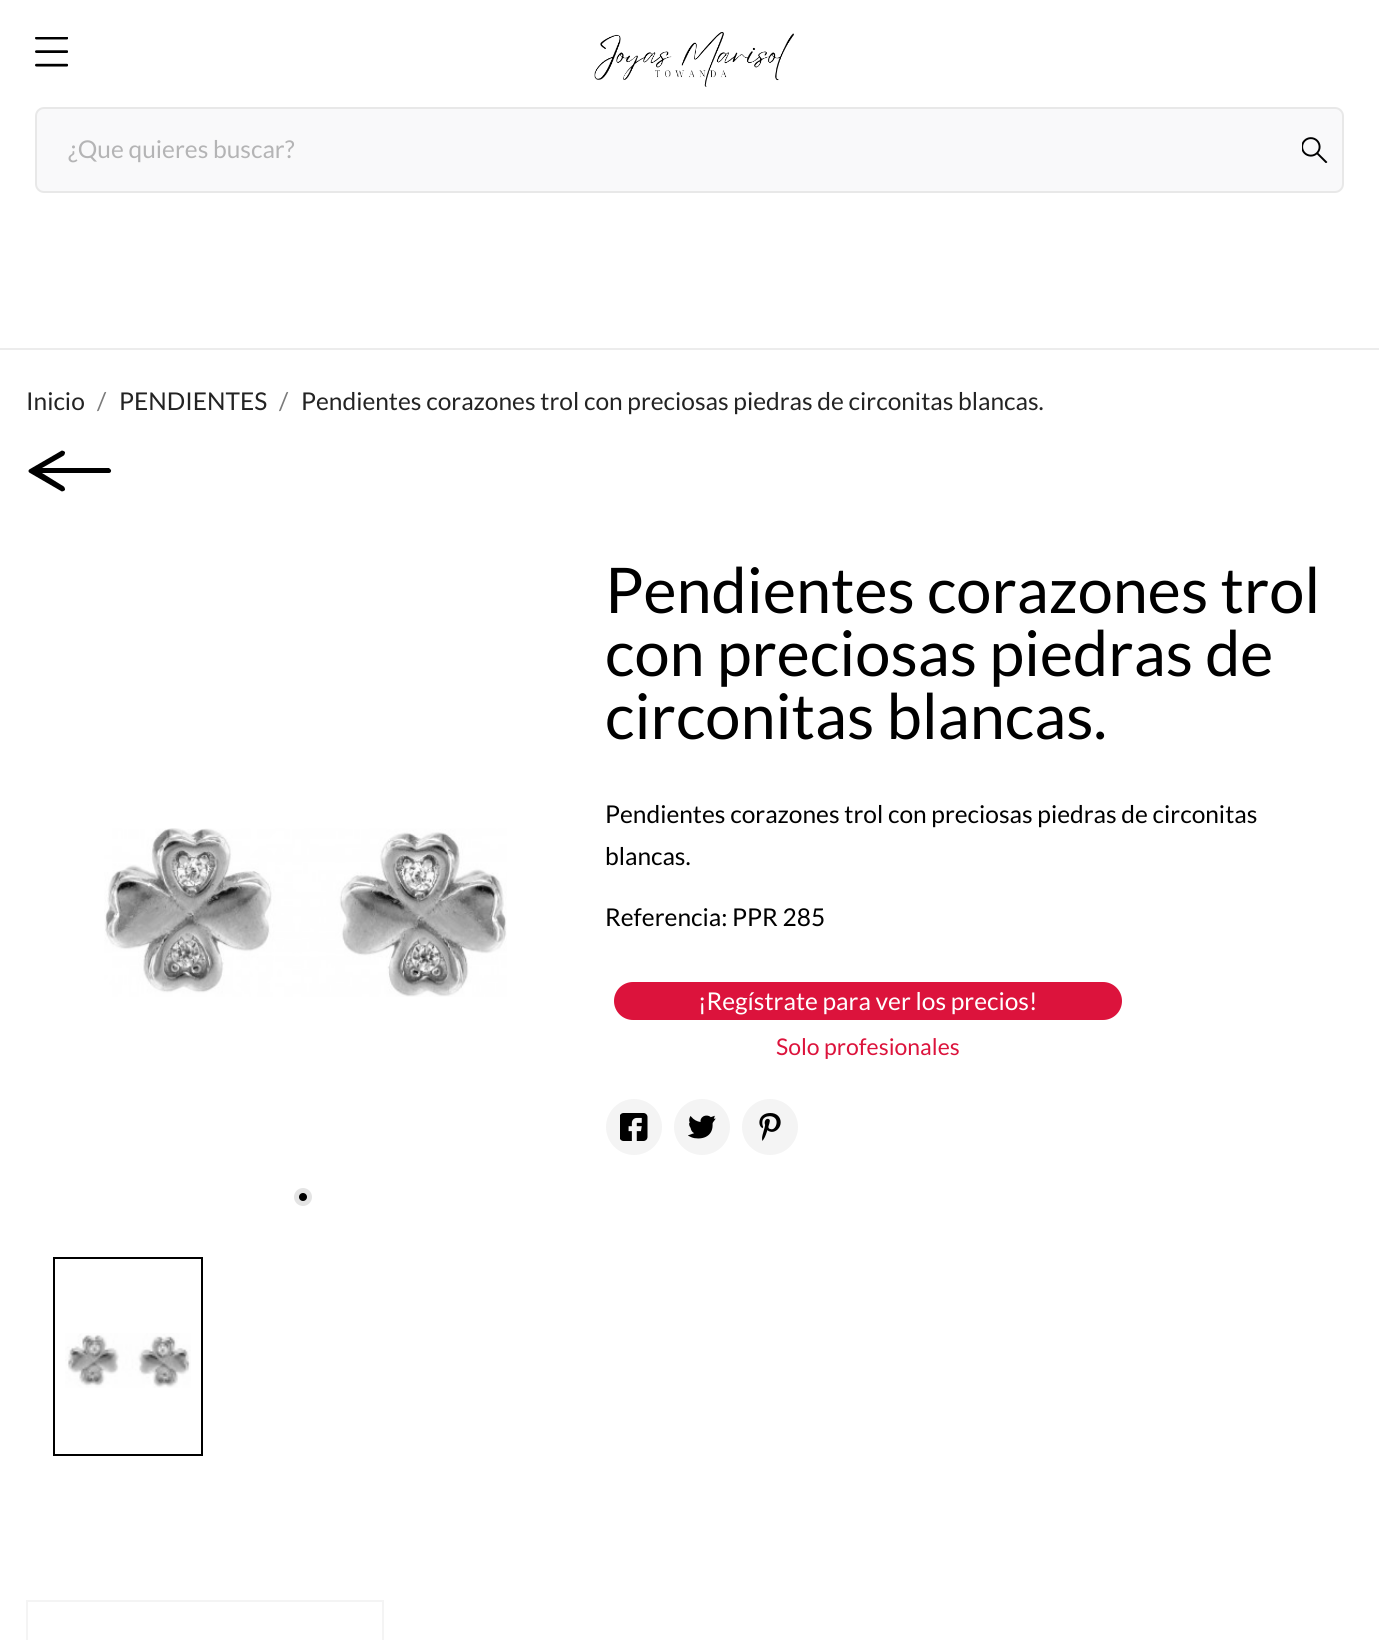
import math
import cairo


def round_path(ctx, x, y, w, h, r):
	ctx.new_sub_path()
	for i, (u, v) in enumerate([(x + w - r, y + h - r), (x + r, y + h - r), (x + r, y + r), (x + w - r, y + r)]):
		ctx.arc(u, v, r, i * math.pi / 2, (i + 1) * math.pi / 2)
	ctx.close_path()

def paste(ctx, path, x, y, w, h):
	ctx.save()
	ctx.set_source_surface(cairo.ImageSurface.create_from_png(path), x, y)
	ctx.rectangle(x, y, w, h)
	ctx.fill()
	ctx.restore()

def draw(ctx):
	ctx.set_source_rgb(1, 1, 1)
	ctx.paint()
	paste(ctx, 'media/1.png', 35, 37, 33, 30)
	paste(ctx, 'media/2.png', 594, 32, 200, 55)
	ctx.set_source_rgb(0.922, 0.922, 0.922)
	ctx.rectangle(0, 348, 1379, 2)
	ctx.fill()
	ctx.set_source_rgb(0.976, 0.976, 0.98)
	round_path(ctx, 36, 108, 1307, 84, 8)
	ctx.fill_preserve()
	ctx.set_source_rgb(0.91, 0.91, 0.91)
	ctx.stroke()
	ctx.select_font_face('Lato')
	ctx.set_font_size(24.5)
	ctx.set_source_rgb(0.706, 0.706, 0.71)
	ctx.move_to(68, 158)
	ctx.show_text('¿Que quieres buscar?')
	paste(ctx, 'media/3.png', 1302, 137, 26, 26)
	ctx.set_source_rgb(0.137, 0.137, 0.137)
	ctx.move_to(26, 410)
	ctx.show_text('Inicio')
	ctx.set_source_rgb(0.478, 0.478, 0.478)
	ctx.move_to(97, 410)
	ctx.show_text('/')
	ctx.set_source_rgb(0.137, 0.137, 0.137)
	ctx.move_to(119, 410)
	ctx.show_text('PENDIENTES')
	ctx.set_source_rgb(0.478, 0.478, 0.478)
	ctx.move_to(279, 410)
	ctx.show_text('/')
	ctx.set_source_rgb(0.137, 0.137, 0.137)
	ctx.move_to(301, 410)
	ctx.show_text('Pendientes corazones trol con preciosas piedras de circonitas blancas.')
	ctx.set_source_rgb(0, 0, 0)
	ctx.new_path()
	ctx.move_to(65, 452)
	ctx.curve_to(65, 453, 65, 455, 63, 456)
	ctx.line_to(42, 468)
	ctx.line_to(109, 468)
	ctx.line_to(110, 469)
	ctx.curve_to(112, 470, 111, 473, 109, 473)
	ctx.line_to(42, 473)
	ctx.line_to(63, 486)
	ctx.curve_to(65, 487, 65, 489, 65, 490)
	ctx.curve_to(64, 491, 62, 492, 61, 491)
	ctx.line_to(30, 473)
	ctx.curve_to(28, 472, 28, 470, 30, 469)
	ctx.line_to(61, 451)
	ctx.curve_to(62, 450, 64, 451, 65, 452)
	ctx.close_path()
	ctx.fill()
	paste(ctx, 'media/4.png', 104, 828, 403, 169)
	ctx.arc(303, 1197, 6.5, 0, 2 * math.pi)
	ctx.fill_preserve()
	ctx.set_source_rgb(0.894, 0.894, 0.894)
	ctx.set_line_width(5)
	ctx.stroke()
	paste(ctx, 'media/5.png', 65, 1333, 126, 55)
	ctx.rectangle(54, 1258, 148, 197)
	ctx.set_source_rgb(0, 0, 0)
	ctx.set_line_width(2)
	ctx.stroke()
	ctx.set_font_size(63)
	for x, y, s in [
		(605, 613, 'Pendientes corazones trol'),
		(605, 676, 'con preciosas piedras de'),
		(605, 739, 'circonitas blancas.'),
	]:
		ctx.move_to(x, y)
		ctx.show_text(s)
	ctx.set_font_size(24.5)
	for x, y, s in [
		(605, 823, 'Pendientes corazones trol con preciosas piedras de circonitas'),
		(605, 865, 'blancas.'),
		(605, 926, 'Referencia: PPR 285'),
	]:
		ctx.move_to(x, y)
		ctx.show_text(s)
	ctx.set_source_rgb(0.863, 0.078, 0.235)
	round_path(ctx, 614, 982, 508, 38, 19)
	ctx.fill()
	ctx.set_source_rgb(1, 1, 1)
	ctx.move_to(698, 1010)
	ctx.show_text('¡Regístrate para ver los precios!')
	ctx.set_font_size(23)
	ctx.set_source_rgb(0.863, 0.078, 0.235)
	ctx.move_to(776, 1055)
	ctx.show_text('Solo profesionales')
	ctx.set_source_rgb(0.957, 0.957, 0.957)
	ctx.new_path()
	ctx.arc(634, 1127, 28, 0, 2 * math.pi)
	ctx.fill()
	paste(ctx, 'media/6.png', 620, 1113, 28, 28)
	ctx.arc(702, 1127, 28, 0, 2 * math.pi)
	ctx.fill()
	paste(ctx, 'media/7.png', 688, 1115, 28, 24)
	ctx.arc(770, 1127, 28, 0, 2 * math.pi)
	ctx.fill()
	paste(ctx, 'media/8.png', 759, 1113, 22, 28)
	ctx.rectangle(26, 1600, 357, 2)
	ctx.rectangle(382, 1600, 2, 40)
	ctx.rectangle(26, 1600, 2, 40)
	ctx.fill()


surface = cairo.ImageSurface(cairo.FORMAT_RGB24, 1379, 1640)
ctx = cairo.Context(surface)
options = cairo.FontOptions()
options.set_hint_metrics(cairo.HINT_METRICS_OFF)
options.set_hint_style(cairo.HINT_STYLE_NONE)
ctx.set_font_options(options)
ctx.set_miter_limit(4)
draw(ctx)
surface.write_to_png('image.png')
